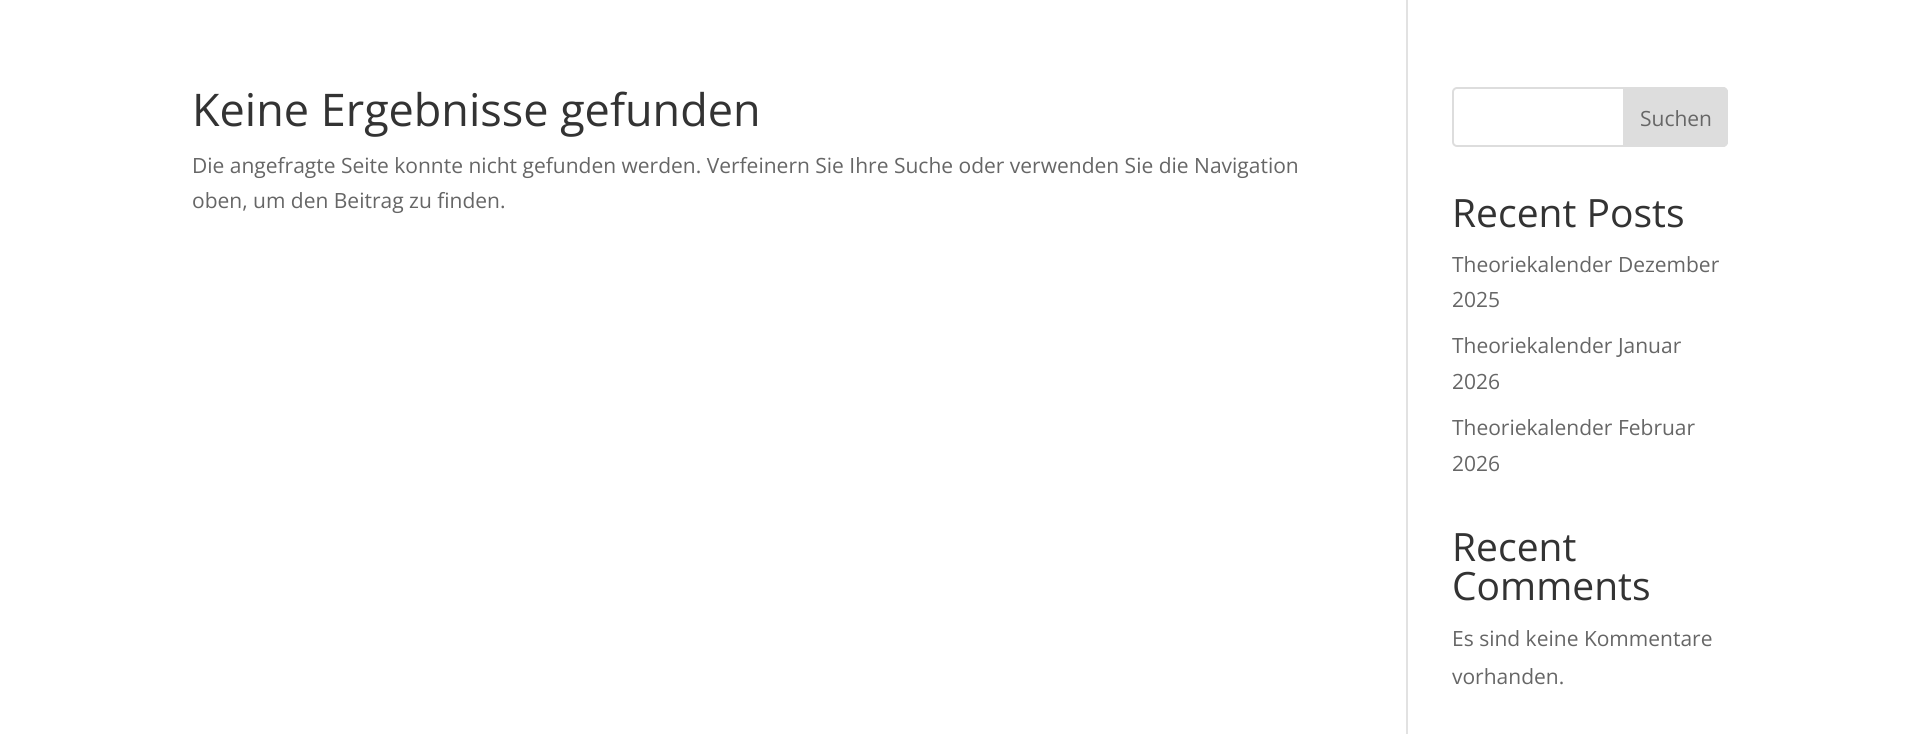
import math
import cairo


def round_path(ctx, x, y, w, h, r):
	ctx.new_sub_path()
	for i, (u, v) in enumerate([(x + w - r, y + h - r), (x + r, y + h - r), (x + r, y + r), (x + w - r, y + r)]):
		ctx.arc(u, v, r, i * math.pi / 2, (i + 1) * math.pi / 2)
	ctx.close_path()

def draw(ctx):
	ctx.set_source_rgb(1, 1, 1)
	ctx.paint()
	ctx.set_source_rgb(0.886, 0.886, 0.886)
	ctx.rectangle(1406, 0, 2, 734)
	ctx.fill()
	ctx.select_font_face('Open Sans')
	ctx.set_font_size(45)
	ctx.set_source_rgb(0.2, 0.2, 0.2)
	ctx.move_to(192, 126)
	ctx.show_text('Keine Ergebnisse gefunden')
	ctx.set_font_size(21)
	ctx.set_source_rgb(0.4, 0.4, 0.4)
	ctx.move_to(192, 173)
	ctx.show_text('Die angefragte Seite konnte nicht gefunden werden. Verfeinern Sie Ihre Suche oder verwenden Sie die Navigation')
	ctx.move_to(192, 208)
	ctx.show_text('oben, um den Beitrag zu finden.')
	round_path(ctx, 1453, 88, 274, 58, 4)
	ctx.set_source_rgb(0.867, 0.867, 0.867)
	ctx.stroke()
	ctx.new_path()
	ctx.move_to(1624, 88)
	ctx.line_to(1723, 88)
	ctx.curve_to(1725, 88, 1727, 90, 1727, 92)
	ctx.line_to(1727, 142)
	ctx.curve_to(1727, 144, 1725, 146, 1723, 146)
	ctx.line_to(1624, 146)
	ctx.close_path()
	ctx.fill_preserve()
	ctx.stroke()
	ctx.set_source_rgb(0.4, 0.4, 0.4)
	ctx.move_to(1640, 126)
	ctx.show_text('Suchen')
	ctx.set_font_size(39)
	ctx.set_source_rgb(0.2, 0.2, 0.2)
	ctx.move_to(1452, 227)
	ctx.show_text('Recent Posts')
	ctx.set_font_size(21)
	ctx.set_source_rgb(0.4, 0.4, 0.4)
	for x, y, s in [
		(1452, 272, 'Theoriekalender Dezember'),
		(1452, 307, '2025'),
		(1452, 353, 'Theoriekalender Januar'),
		(1452, 389, '2026'),
		(1452, 435, 'Theoriekalender Februar'),
		(1452, 471, '2026'),
	]:
		ctx.move_to(x, y)
		ctx.show_text(s)
	ctx.set_font_size(39)
	ctx.set_source_rgb(0.2, 0.2, 0.2)
	ctx.move_to(1452, 561)
	ctx.show_text('Recent')
	ctx.move_to(1452, 600)
	ctx.show_text('Comments')
	ctx.set_font_size(21)
	ctx.set_source_rgb(0.4, 0.4, 0.4)
	ctx.move_to(1452, 646)
	ctx.show_text('Es sind keine Kommentare')
	ctx.move_to(1452, 684)
	ctx.show_text('vorhanden.')


surface = cairo.ImageSurface(cairo.FORMAT_RGB24, 1919, 734)
ctx = cairo.Context(surface)
options = cairo.FontOptions()
options.set_hint_metrics(cairo.HINT_METRICS_OFF)
options.set_hint_style(cairo.HINT_STYLE_NONE)
ctx.set_font_options(options)
ctx.set_miter_limit(4)
draw(ctx)
surface.write_to_png('image.png')
